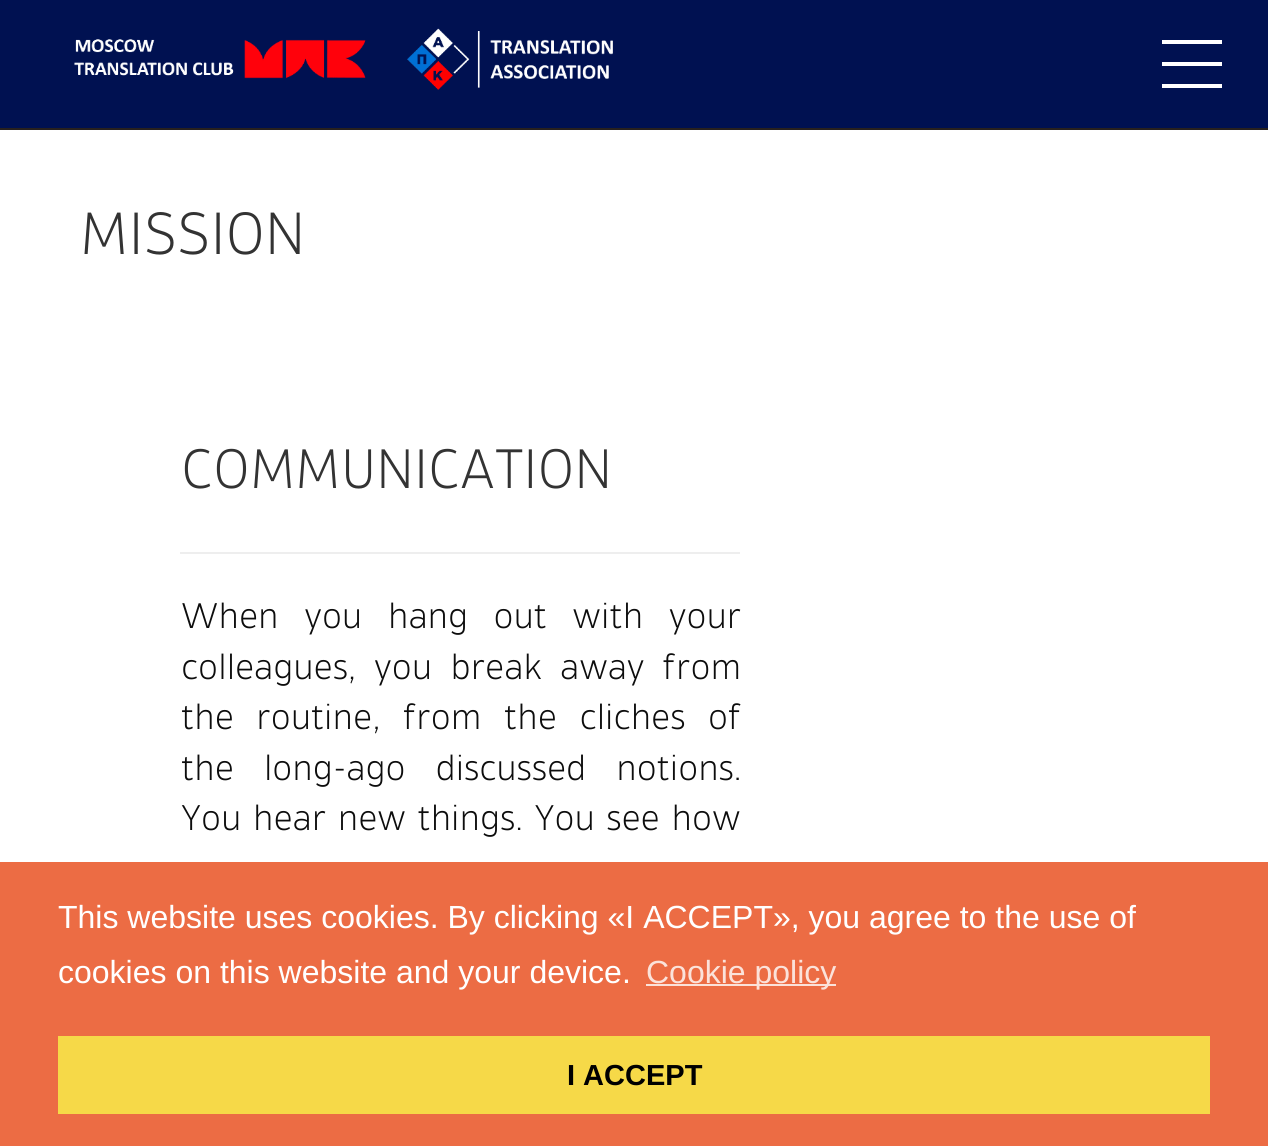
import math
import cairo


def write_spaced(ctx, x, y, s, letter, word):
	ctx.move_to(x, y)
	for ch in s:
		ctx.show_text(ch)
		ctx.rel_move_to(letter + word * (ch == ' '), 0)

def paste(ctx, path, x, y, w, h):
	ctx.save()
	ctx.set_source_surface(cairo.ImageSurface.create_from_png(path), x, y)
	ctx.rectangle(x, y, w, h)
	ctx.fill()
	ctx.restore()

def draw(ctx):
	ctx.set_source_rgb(1, 1, 1)
	ctx.paint()
	ctx.set_source_rgb(0, 0.067, 0.318)
	ctx.rectangle(0, 0, 1268, 128)
	ctx.fill()
	ctx.set_source_rgb(0.157, 0.129, 0.118)
	ctx.rectangle(0, 128, 1268, 2)
	ctx.fill()
	paste(ctx, 'media/1.png', 74, 28, 539, 62)
	ctx.set_source_rgb(1, 1, 1)
	ctx.rectangle(1162, 40, 60, 4)
	ctx.rectangle(1162, 62, 60, 4)
	ctx.rectangle(1162, 84, 60, 4)
	ctx.fill()
	ctx.select_font_face('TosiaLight')
	ctx.set_font_size(60)
	ctx.set_source_rgb(0.2, 0.2, 0.2)
	ctx.move_to(80, 254)
	ctx.show_text('MISSION')
	ctx.set_font_size(56)
	ctx.move_to(181, 488)
	ctx.show_text('COMMUNICATION')
	ctx.set_source_rgb(0.933, 0.933, 0.933)
	ctx.rectangle(180, 552, 560, 2)
	ctx.fill()
	ctx.set_font_size(36)
	ctx.set_source_rgb(0.051, 0.051, 0.051)
	write_spaced(ctx, 181, 628, 'When you hang out with your', 0, 15.5)
	write_spaced(ctx, 181, 679, 'colleagues, you break away from', 0, 8)
	write_spaced(ctx, 181, 729, 'the routine, from the cliches of', 0, 12.5)
	write_spaced(ctx, 181, 780, 'the long-ago discussed notions.', 0, 20)
	write_spaced(ctx, 181, 830, 'You hear new things. You see how', 0, 1.5)
	ctx.set_source_rgb(0.922, 0.424, 0.267)
	ctx.rectangle(0, 862, 1268, 284)
	ctx.fill()
	ctx.select_font_face('Liberation Sans')
	ctx.set_font_size(32)
	ctx.set_source_rgb(1, 1, 1)
	ctx.move_to(58, 928)
	ctx.show_text('This website uses cookies. By clicking «I ACCEPT», you agree to the use of')
	ctx.move_to(58, 983)
	ctx.show_text('cookies on this website and your device.')
	ctx.set_source_rgb(0.984, 0.886, 0.855)
	ctx.rectangle(646, 984, 190, 2)
	ctx.fill()
	ctx.move_to(646, 983)
	ctx.show_text('Cookie policy')
	ctx.set_source_rgb(0.961, 0.851, 0.282)
	ctx.rectangle(58, 1036, 1152, 78)
	ctx.fill()
	ctx.select_font_face('Liberation Sans', cairo.FONT_SLANT_NORMAL, cairo.FONT_WEIGHT_BOLD)
	ctx.set_font_size(29)
	ctx.set_source_rgb(0, 0, 0)
	ctx.move_to(567, 1085)
	ctx.show_text('I ACCEPT')


surface = cairo.ImageSurface(cairo.FORMAT_RGB24, 1268, 1146)
ctx = cairo.Context(surface)
options = cairo.FontOptions()
options.set_hint_metrics(cairo.HINT_METRICS_OFF)
options.set_hint_style(cairo.HINT_STYLE_NONE)
ctx.set_font_options(options)
ctx.set_miter_limit(4)
draw(ctx)
surface.write_to_png('image.png')
